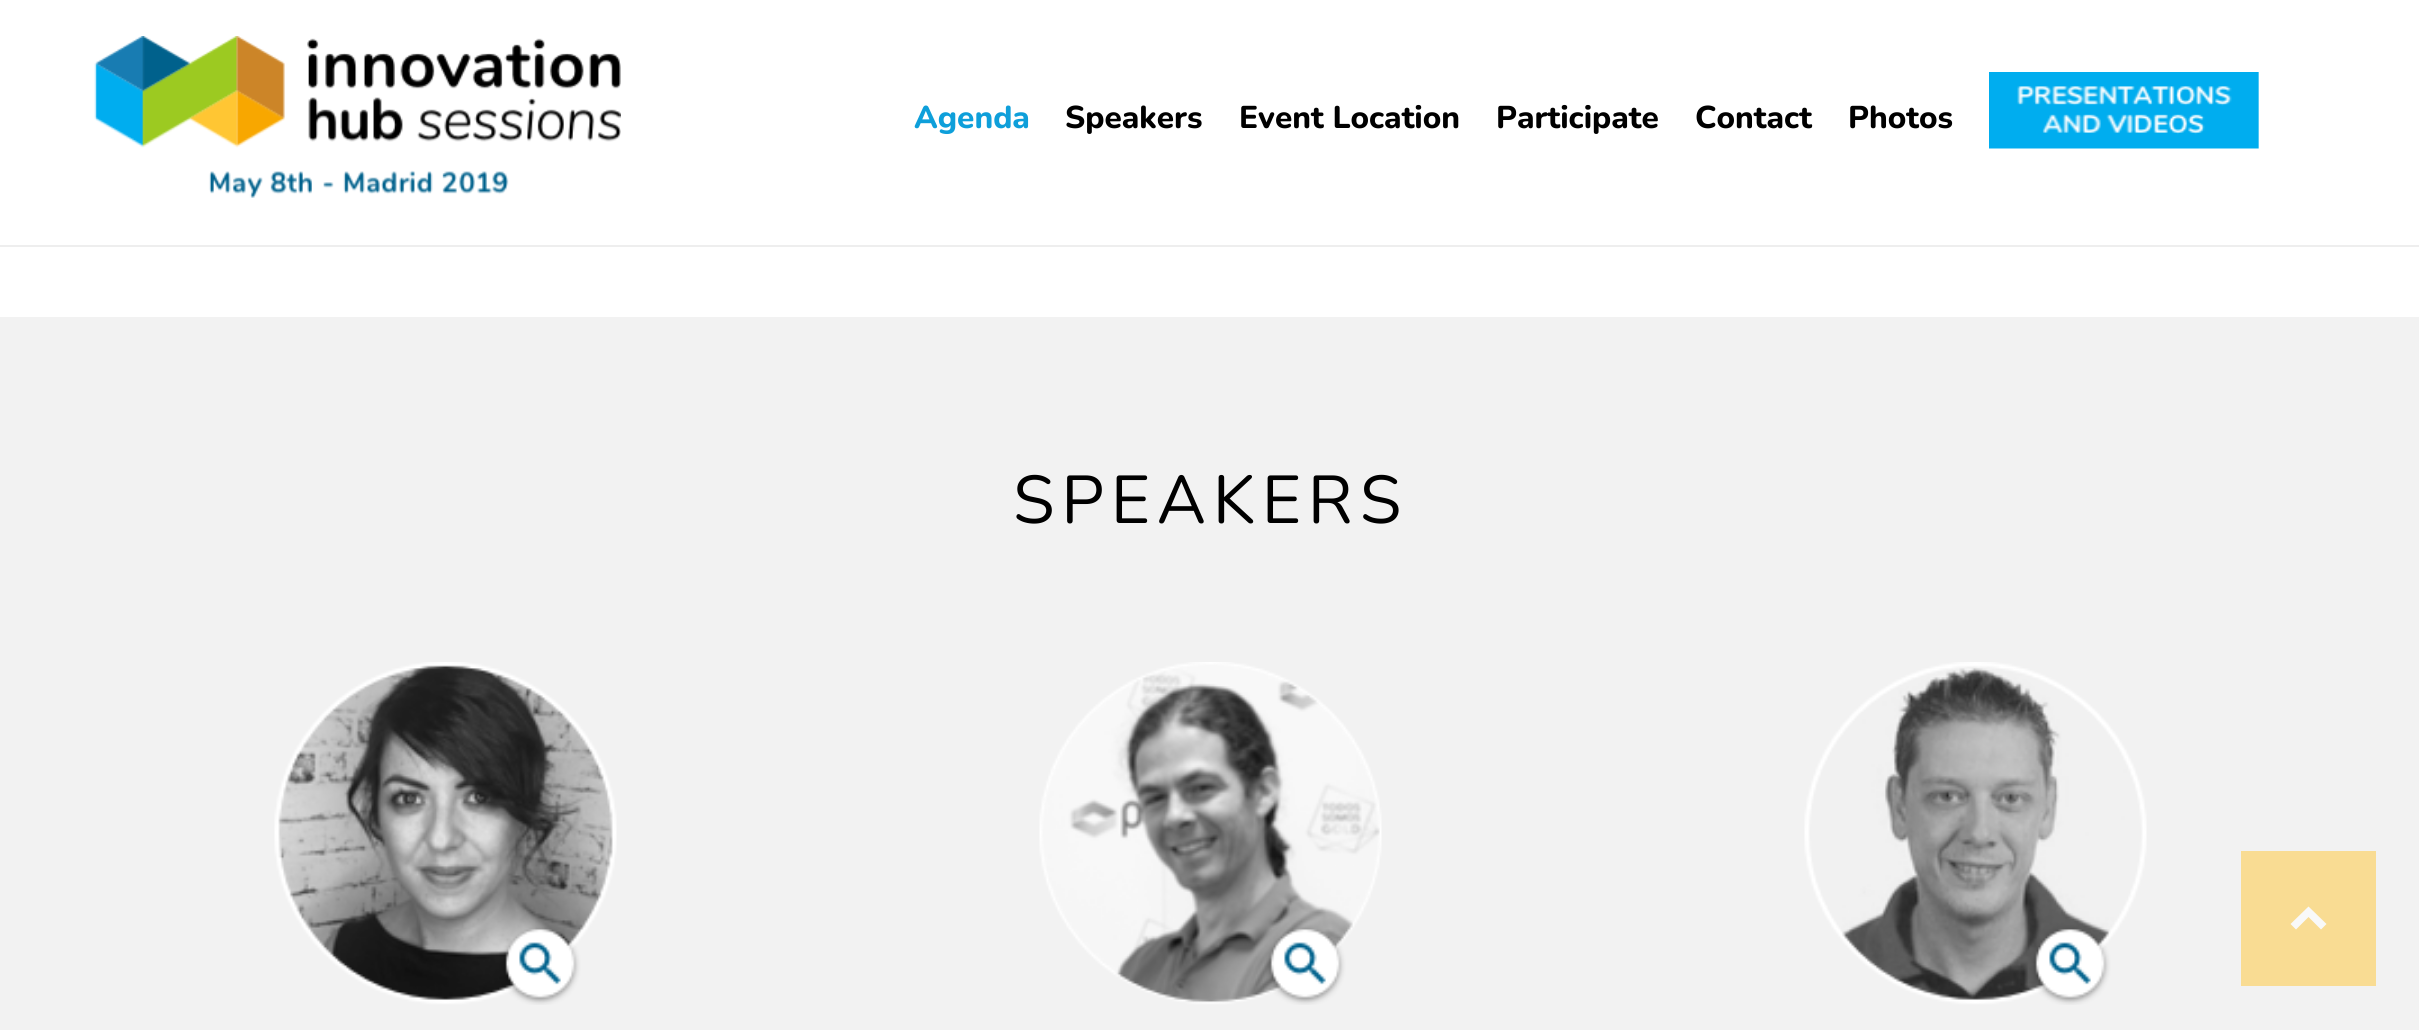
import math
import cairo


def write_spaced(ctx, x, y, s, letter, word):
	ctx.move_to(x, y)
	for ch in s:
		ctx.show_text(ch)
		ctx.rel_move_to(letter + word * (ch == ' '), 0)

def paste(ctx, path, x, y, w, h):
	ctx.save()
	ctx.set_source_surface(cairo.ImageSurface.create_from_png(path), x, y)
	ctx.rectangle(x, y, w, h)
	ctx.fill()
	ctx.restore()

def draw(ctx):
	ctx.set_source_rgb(1, 1, 1)
	ctx.paint()
	ctx.set_source_rgb(0.933, 0.933, 0.933)
	ctx.rectangle(0, 245, 2419, 2)
	ctx.fill()
	paste(ctx, 'media/1.png', 94, 36, 527, 162)
	ctx.select_font_face('Nunito ExtraBold')
	ctx.set_font_size(31.5)
	ctx.set_source_rgb(0.055, 0.624, 0.855)
	ctx.move_to(914, 128)
	ctx.show_text('Agenda')
	ctx.set_source_rgb(0, 0, 0)
	for x, y, s in [
		(1065, 128, 'Speakers'),
		(1239, 128, 'Event Location'),
		(1496, 128, 'Participate'),
		(1695, 128, 'Contact'),
		(1848, 128, 'Photos'),
	]:
		ctx.move_to(x, y)
		ctx.show_text(s)
	paste(ctx, 'media/2.png', 1989, 72, 270, 77)
	ctx.set_source_rgb(0.949, 0.949, 0.949)
	ctx.rectangle(0, 317, 2419, 713)
	ctx.fill()
	ctx.select_font_face('Nunito')
	ctx.set_font_size(67.5)
	ctx.set_source_rgb(0, 0, 0)
	write_spaced(ctx, 1013, 523, 'SPEAKERS', 6.75, 0)
	paste(ctx, 'media/3.png', 274, 662, 343, 343)
	paste(ctx, 'media/4.png', 1039, 662, 343, 343)
	paste(ctx, 'media/5.png', 1804, 662, 343, 343)
	ctx.set_source_rgb(0.976, 0.863, 0.576)
	ctx.rectangle(2241, 851, 135, 135)
	ctx.fill()
	ctx.set_source_rgb(0.976, 0.976, 0.976)
	ctx.new_path()
	ctx.move_to(2308.5, 906.5)
	ctx.line_to(2326.5, 924)
	ctx.line_to(2321, 929.5)
	ctx.line_to(2308.5, 917)
	ctx.line_to(2296, 929.5)
	ctx.line_to(2290.5, 924)
	ctx.close_path()
	ctx.fill()


surface = cairo.ImageSurface(cairo.FORMAT_RGB24, 2419, 1030)
ctx = cairo.Context(surface)
options = cairo.FontOptions()
options.set_hint_metrics(cairo.HINT_METRICS_OFF)
options.set_hint_style(cairo.HINT_STYLE_NONE)
ctx.set_font_options(options)
ctx.set_miter_limit(4)
draw(ctx)
surface.write_to_png('image.png')
